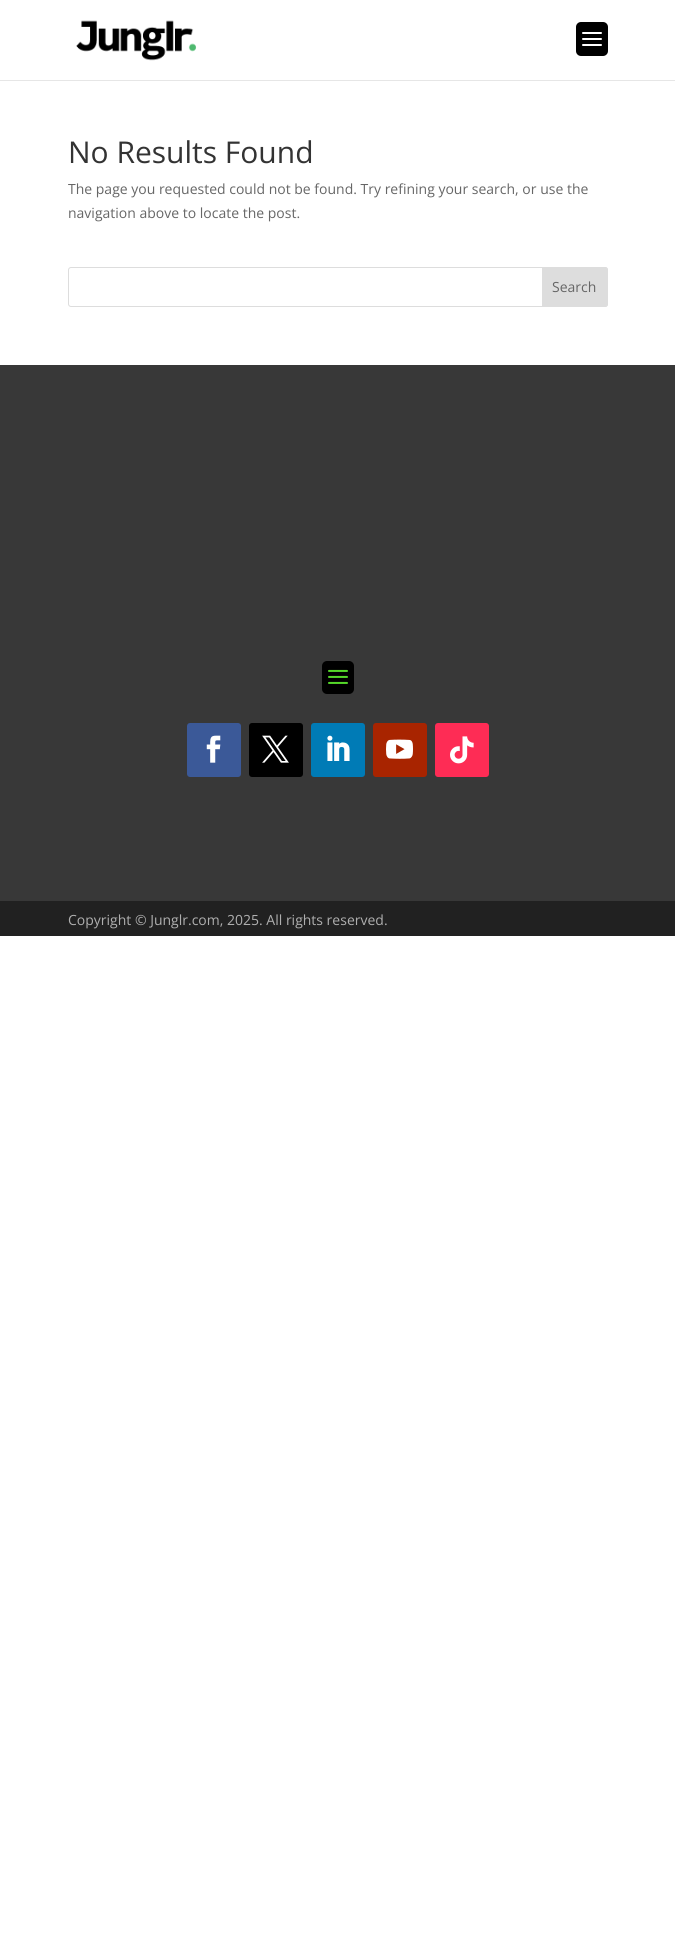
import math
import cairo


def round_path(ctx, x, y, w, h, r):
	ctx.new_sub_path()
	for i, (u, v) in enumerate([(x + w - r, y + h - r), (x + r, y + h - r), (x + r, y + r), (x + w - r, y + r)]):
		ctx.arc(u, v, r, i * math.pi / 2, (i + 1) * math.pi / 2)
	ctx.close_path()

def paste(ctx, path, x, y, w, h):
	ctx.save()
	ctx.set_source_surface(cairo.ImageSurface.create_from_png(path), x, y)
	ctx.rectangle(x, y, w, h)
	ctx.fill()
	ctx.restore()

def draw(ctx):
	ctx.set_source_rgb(1, 1, 1)
	ctx.paint()
	ctx.set_source_rgb(0.902, 0.902, 0.902)
	ctx.rectangle(0, 80, 675, 1)
	ctx.fill()
	paste(ctx, 'media/1.png', 76, 20, 121, 41)
	ctx.set_source_rgb(0, 0, 0)
	round_path(ctx, 576, 22, 32, 34, 5)
	ctx.fill()
	paste(ctx, 'media/2.png', 582, 32, 20, 14)
	ctx.select_font_face('Open Sans')
	ctx.set_font_size(30)
	ctx.set_source_rgb(0.2, 0.2, 0.2)
	ctx.move_to(68, 163)
	ctx.show_text('No Results Found')
	ctx.set_font_size(14)
	ctx.set_source_rgb(0.4, 0.4, 0.4)
	ctx.move_to(68, 194)
	ctx.show_text('The page you requested could not be found. Try refining your search, or use the')
	ctx.move_to(68, 218)
	ctx.show_text('navigation above to locate the post.')
	round_path(ctx, 68.5, 267.5, 539, 39, 2.5)
	ctx.set_source_rgb(0.867, 0.867, 0.867)
	ctx.set_line_width(1)
	ctx.stroke()
	ctx.new_path()
	ctx.move_to(542.5, 267.5)
	ctx.line_to(605, 267.5)
	ctx.curve_to(606.5, 267.5, 607.5, 268.5, 607.5, 270)
	ctx.line_to(607.5, 304)
	ctx.curve_to(607.5, 305.5, 606.5, 306.5, 605, 306.5)
	ctx.line_to(542.5, 306.5)
	ctx.close_path()
	ctx.fill_preserve()
	ctx.stroke()
	ctx.set_source_rgb(0.4, 0.4, 0.4)
	ctx.move_to(552, 292)
	ctx.show_text('Search')
	ctx.set_source_rgb(0.22, 0.22, 0.22)
	ctx.rectangle(0, 365, 675, 536)
	ctx.fill()
	ctx.set_source_rgb(0, 0, 0)
	round_path(ctx, 322, 661, 32, 33, 5)
	ctx.fill()
	paste(ctx, 'media/3.png', 328, 669, 20, 15)
	ctx.set_source_rgb(0.231, 0.349, 0.596)
	round_path(ctx, 187, 723, 54, 54, 3)
	ctx.fill()
	paste(ctx, 'media/4.png', 206, 735, 15, 28)
	ctx.set_source_rgb(0, 0, 0)
	round_path(ctx, 249, 723, 54, 54, 3)
	ctx.fill()
	paste(ctx, 'media/5.png', 262, 735, 27, 28)
	ctx.set_source_rgb(0, 0.482, 0.714)
	round_path(ctx, 311, 723, 54, 54, 3)
	ctx.fill()
	paste(ctx, 'media/6.png', 327, 735, 23, 26)
	ctx.set_source_rgb(0.659, 0.141, 0)
	round_path(ctx, 373, 723, 54, 54, 3)
	ctx.fill()
	paste(ctx, 'media/7.png', 386, 739, 27, 20)
	ctx.set_source_rgb(0.996, 0.173, 0.333)
	round_path(ctx, 435, 723, 54, 54, 3)
	ctx.fill()
	paste(ctx, 'media/8.png', 450, 736, 24, 28)
	ctx.set_source_rgb(0.129, 0.129, 0.129)
	ctx.rectangle(0, 901, 675, 35)
	ctx.fill()
	ctx.set_source_rgb(0.686, 0.686, 0.686)
	ctx.move_to(68, 925)
	ctx.show_text('Copyright © Junglr.com, 2025. All rights reserved.')


surface = cairo.ImageSurface(cairo.FORMAT_RGB24, 675, 1958)
ctx = cairo.Context(surface)
options = cairo.FontOptions()
options.set_hint_metrics(cairo.HINT_METRICS_OFF)
options.set_hint_style(cairo.HINT_STYLE_NONE)
ctx.set_font_options(options)
ctx.set_miter_limit(4)
draw(ctx)
surface.write_to_png('image.png')
